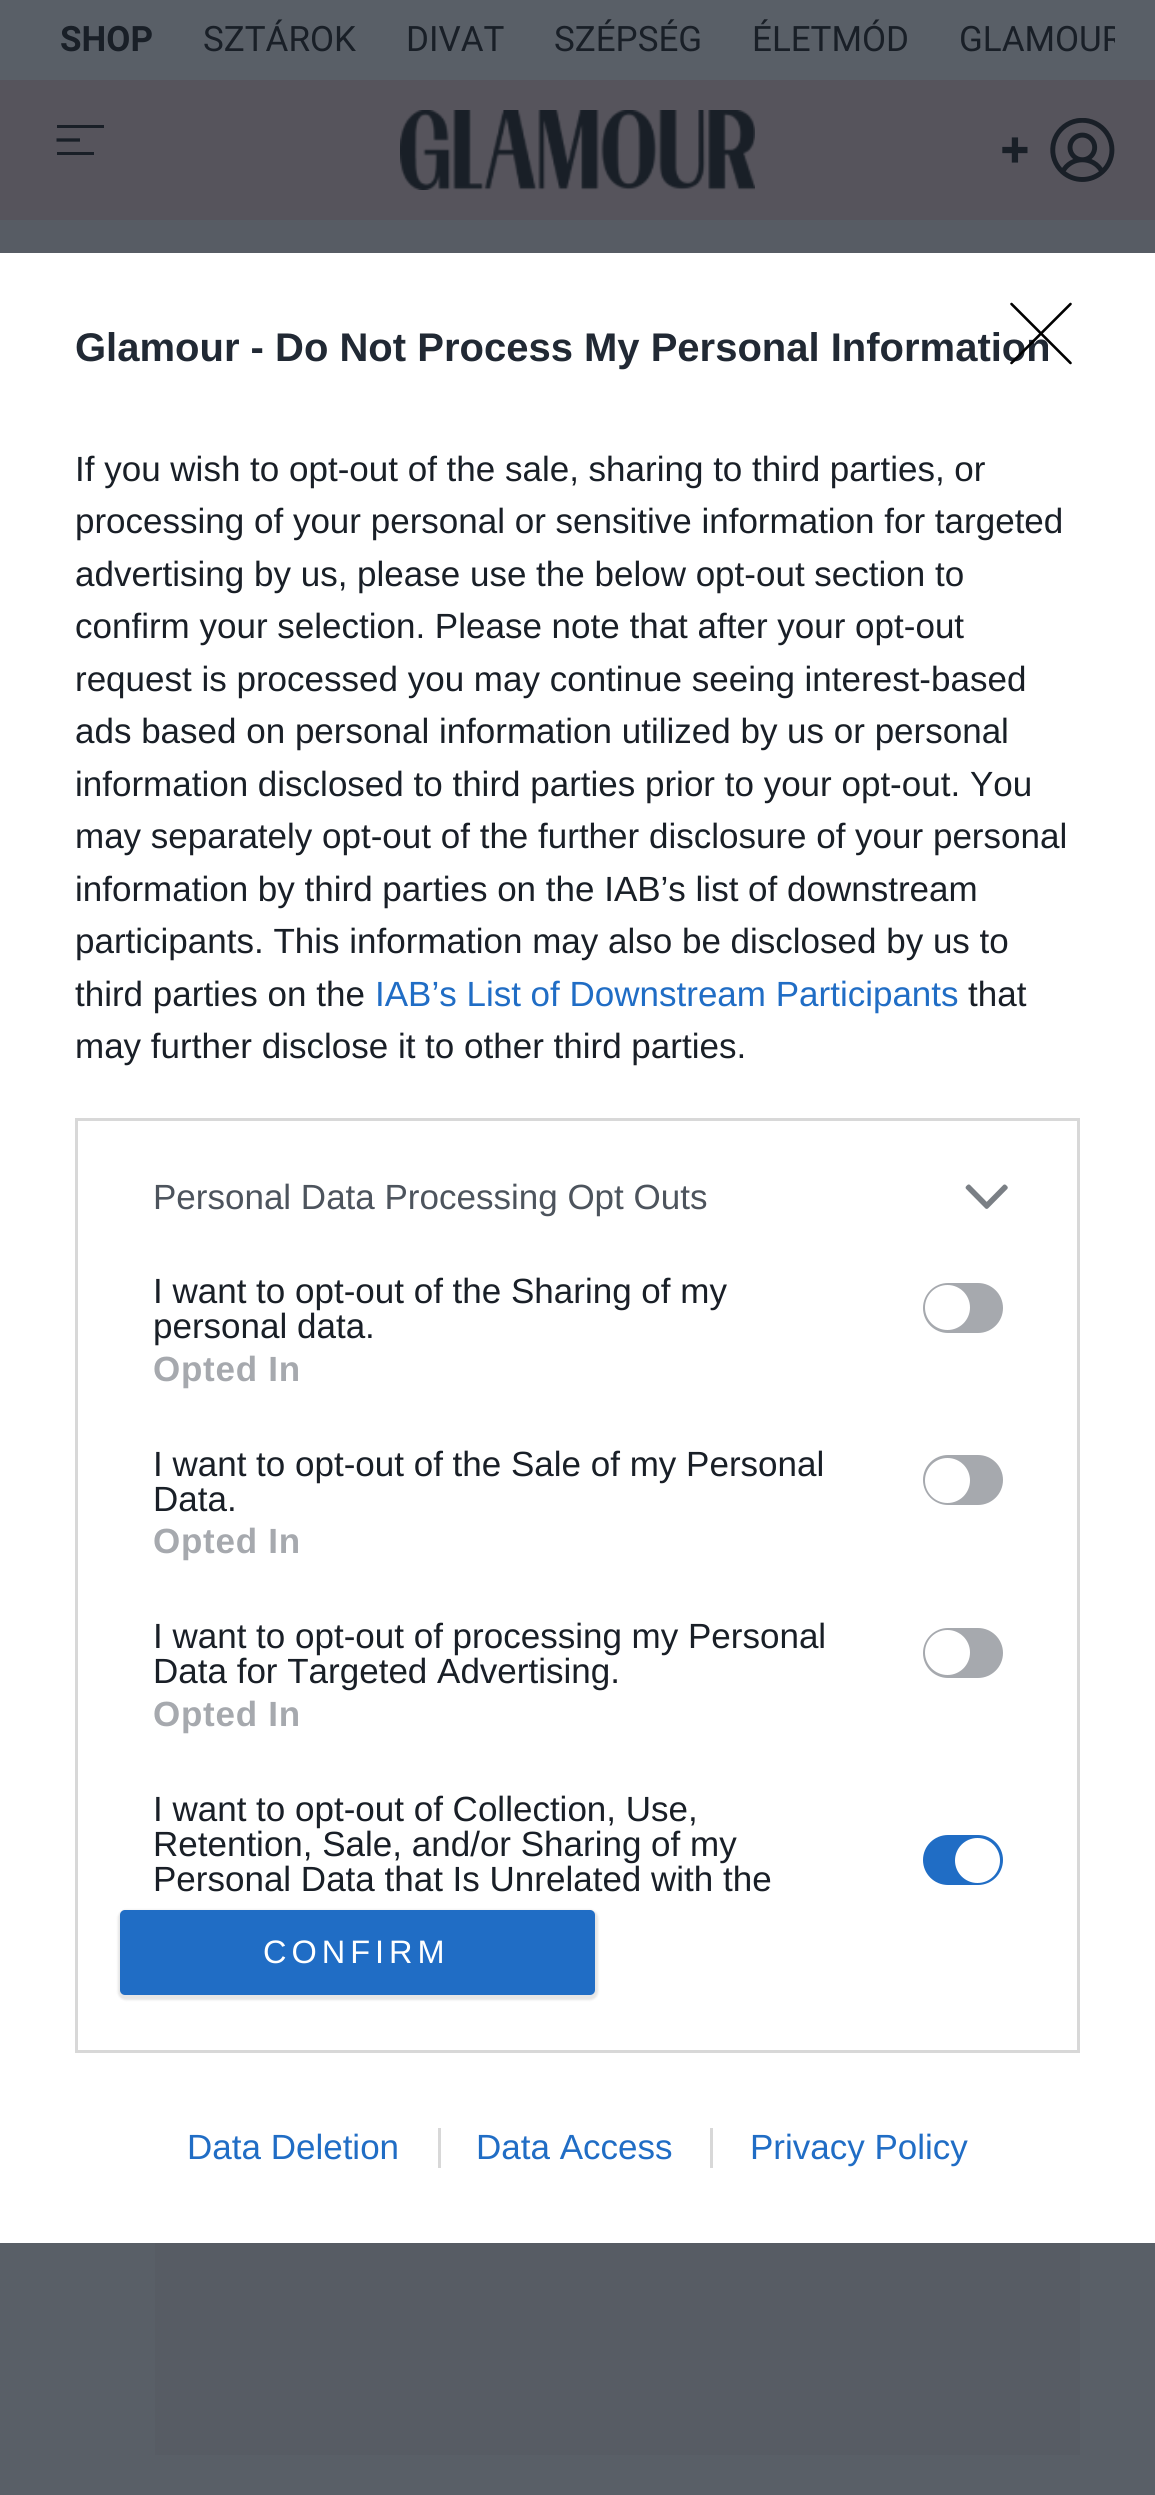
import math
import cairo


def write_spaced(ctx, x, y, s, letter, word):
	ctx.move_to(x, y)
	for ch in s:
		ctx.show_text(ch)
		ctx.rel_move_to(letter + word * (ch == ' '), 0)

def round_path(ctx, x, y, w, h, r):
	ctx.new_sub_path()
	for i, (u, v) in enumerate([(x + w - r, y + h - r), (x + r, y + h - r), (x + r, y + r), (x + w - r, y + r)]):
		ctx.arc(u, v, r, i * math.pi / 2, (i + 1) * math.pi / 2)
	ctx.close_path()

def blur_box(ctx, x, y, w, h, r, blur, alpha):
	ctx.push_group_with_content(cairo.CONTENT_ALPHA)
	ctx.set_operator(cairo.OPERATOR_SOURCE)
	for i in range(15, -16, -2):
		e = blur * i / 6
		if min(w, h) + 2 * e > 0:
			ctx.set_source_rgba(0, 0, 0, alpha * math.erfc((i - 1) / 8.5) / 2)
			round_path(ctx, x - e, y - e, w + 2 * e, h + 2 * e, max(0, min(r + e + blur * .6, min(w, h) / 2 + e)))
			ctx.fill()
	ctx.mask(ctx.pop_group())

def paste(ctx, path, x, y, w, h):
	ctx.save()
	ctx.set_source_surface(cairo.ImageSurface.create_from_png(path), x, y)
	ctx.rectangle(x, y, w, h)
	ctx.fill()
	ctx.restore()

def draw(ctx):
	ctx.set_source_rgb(0.349, 0.373, 0.404)
	ctx.paint()
	ctx.select_font_face('Roboto', cairo.FONT_SLANT_NORMAL, cairo.FONT_WEIGHT_BOLD)
	ctx.set_font_size(35)
	ctx.set_source_rgb(0.098, 0.122, 0.153)
	ctx.move_to(60, 51)
	ctx.show_text('SHOP')
	ctx.select_font_face('Roboto')
	for x, y, s in [
		(203, 51, 'SZTÁROK'),
		(406, 51, 'DIVAT'),
		(554, 51, 'SZÉPSÉG'),
		(752, 51, 'ÉLETMÓD'),
	]:
		ctx.move_to(x, y)
		ctx.show_text(s)
	ctx.save()
	ctx.rectangle(40, 0, 1075, 88)
	ctx.clip()
	ctx.move_to(959, 51)
	ctx.show_text('GLAMOUR')
	ctx.restore()
	ctx.set_source_rgb(0.337, 0.329, 0.361)
	ctx.rectangle(0, 80, 1155, 140)
	ctx.fill()
	ctx.set_source_rgb(0.098, 0.122, 0.153)
	ctx.rectangle(57, 125, 47, 3)
	ctx.fill()
	ctx.new_path()
	ctx.move_to(56.5, 140)
	ctx.line_to(80, 140)
	ctx.set_line_width(3.3)
	ctx.stroke()
	ctx.rectangle(57, 152, 37, 3)
	ctx.fill()
	paste(ctx, 'media/1.png', 400, 110, 355, 80)
	paste(ctx, 'media/2.png', 1002, 137, 26, 26)
	paste(ctx, 'media/3.png', 1050, 118, 65, 64)
	ctx.set_source_rgb(0.341, 0.361, 0.392)
	ctx.rectangle(0, 220, 1155, 33)
	ctx.fill()
	ctx.set_source_rgb(1, 1, 1)
	ctx.rectangle(0, 253, 1155, 1990)
	ctx.fill()
	ctx.select_font_face('Liberation Sans', cairo.FONT_SLANT_NORMAL, cairo.FONT_WEIGHT_BOLD)
	ctx.set_font_size(40)
	ctx.set_source_rgb(0.129, 0.161, 0.204)
	ctx.move_to(75, 361)
	ctx.show_text('Glamour - Do Not Process My Personal Information')
	ctx.new_path()
	ctx.move_to(1011.5, 304)
	ctx.line_to(1070.5, 363)
	ctx.move_to(1070.5, 304)
	ctx.line_to(1011.5, 363)
	ctx.set_source_rgb(0, 0, 0)
	ctx.set_line_width(2.6)
	ctx.set_line_cap(cairo.LINE_CAP_ROUND)
	ctx.set_line_join(cairo.LINE_JOIN_ROUND)
	ctx.stroke()
	ctx.select_font_face('Liberation Sans')
	ctx.set_font_size(35)
	ctx.set_source_rgb(0.098, 0.122, 0.153)
	for x, y, s in [
		(75, 481, 'If you wish to opt-out of the sale, sharing to third parties, or'),
		(75, 533, 'processing of your personal or sensitive information for targeted'),
		(75, 586, 'advertising by us, please use the below opt-out section to'),
		(75, 638, 'confirm your selection. Please note that after your opt-out'),
		(75, 691, 'request is processed you may continue seeing interest-based'),
		(75, 743, 'ads based on personal information utilized by us or personal'),
		(75, 796, 'information disclosed to third parties prior to your opt-out. You'),
		(75, 848, 'may separately opt-out of the further disclosure of your personal'),
		(75, 901, 'information by third parties on the IAB’s list of downstream'),
		(75, 953, 'participants. This information may also be disclosed by us to'),
		(75, 1006, 'third parties on the'),
	]:
		ctx.move_to(x, y)
		ctx.show_text(s)
	ctx.set_source_rgb(0.125, 0.427, 0.773)
	ctx.move_to(375, 1006)
	ctx.show_text('IAB’s List of Downstream Participants')
	ctx.set_source_rgb(0.098, 0.122, 0.153)
	ctx.move_to(968, 1006)
	ctx.show_text('that')
	ctx.move_to(75, 1058)
	ctx.show_text('may further disclose it to other third parties.')
	ctx.rectangle(76.5, 1119.5, 1002, 932)
	ctx.set_source_rgb(0.847, 0.847, 0.847)
	ctx.set_line_width(3)
	ctx.set_line_cap(cairo.LINE_CAP_BUTT)
	ctx.set_line_join(cairo.LINE_JOIN_MITER)
	ctx.stroke()
	ctx.set_source_rgb(0.302, 0.329, 0.365)
	ctx.move_to(153, 1209)
	ctx.show_text('Personal Data Processing Opt Outs')
	paste(ctx, 'media/4.png', 965, 1184, 43, 25)
	ctx.set_source_rgb(0.098, 0.122, 0.153)
	ctx.move_to(153, 1303)
	ctx.show_text('I want to opt-out of the Sharing of my')
	ctx.move_to(153, 1338)
	ctx.show_text('personal data.')
	ctx.set_source_rgb(0.651, 0.663, 0.682)
	round_path(ctx, 924.5, 1284.5, 77, 47, 23.5)
	ctx.fill_preserve()
	ctx.stroke()
	ctx.set_source_rgb(1, 1, 1)
	ctx.arc(947.5, 1307.5, 22.5, 0, 2 * math.pi)
	ctx.fill()
	ctx.select_font_face('Liberation Sans', cairo.FONT_SLANT_NORMAL, cairo.FONT_WEIGHT_BOLD)
	ctx.set_source_rgb(0.651, 0.663, 0.682)
	write_spaced(ctx, 153, 1381, 'Opted In', 0.75, 0)
	ctx.select_font_face('Liberation Sans')
	ctx.set_source_rgb(0.098, 0.122, 0.153)
	ctx.move_to(153, 1476)
	ctx.show_text('I want to opt-out of the Sale of my Personal')
	ctx.move_to(153, 1511)
	ctx.show_text('Data.')
	ctx.set_source_rgb(0.651, 0.663, 0.682)
	round_path(ctx, 924.5, 1456.5, 77, 47, 23.5)
	ctx.fill_preserve()
	ctx.stroke()
	ctx.set_source_rgb(1, 1, 1)
	ctx.arc(947.5, 1480.5, 22.5, 0, 2 * math.pi)
	ctx.fill()
	ctx.select_font_face('Liberation Sans', cairo.FONT_SLANT_NORMAL, cairo.FONT_WEIGHT_BOLD)
	ctx.set_source_rgb(0.651, 0.663, 0.682)
	write_spaced(ctx, 153, 1553, 'Opted In', 0.75, 0)
	ctx.select_font_face('Liberation Sans')
	ctx.set_source_rgb(0.098, 0.122, 0.153)
	ctx.move_to(153, 1648)
	ctx.show_text('I want to opt-out of processing my Personal')
	ctx.move_to(153, 1683)
	ctx.show_text('Data for Targeted Advertising.')
	ctx.set_source_rgb(0.651, 0.663, 0.682)
	round_path(ctx, 924.5, 1629.5, 77, 47, 23.5)
	ctx.fill_preserve()
	ctx.stroke()
	ctx.set_source_rgb(1, 1, 1)
	ctx.arc(947.5, 1652.5, 22.5, 0, 2 * math.pi)
	ctx.fill()
	ctx.select_font_face('Liberation Sans', cairo.FONT_SLANT_NORMAL, cairo.FONT_WEIGHT_BOLD)
	ctx.set_source_rgb(0.651, 0.663, 0.682)
	write_spaced(ctx, 153, 1726, 'Opted In', 0.75, 0)
	ctx.select_font_face('Liberation Sans')
	ctx.set_source_rgb(0.098, 0.122, 0.153)
	for x, y, s in [
		(153, 1821, 'I want to opt-out of Collection, Use,'),
		(153, 1856, 'Retention, Sale, and/or Sharing of my'),
		(153, 1891, 'Personal Data that Is Unrelated with the'),
	]:
		ctx.move_to(x, y)
		ctx.show_text(s)
	ctx.set_source_rgb(0.125, 0.427, 0.773)
	round_path(ctx, 924.5, 1836.5, 77, 47, 23.5)
	ctx.fill_preserve()
	ctx.stroke()
	ctx.set_source_rgb(1, 1, 1)
	ctx.arc(977.5, 1860.5, 22.5, 0, 2 * math.pi)
	ctx.fill()
	ctx.set_source_rgb(0, 0, 0)
	blur_box(ctx, 118, 1910, 480, 90, 8, 1, 0.1)
	ctx.set_source_rgb(0.125, 0.427, 0.773)
	round_path(ctx, 120, 1910, 475, 85, 5)
	ctx.fill()
	ctx.set_font_size(32.5)
	ctx.set_source_rgb(1, 1, 1)
	write_spaced(ctx, 263, 1963, 'CONFIRM', 5, 0)
	ctx.set_font_size(35)
	ctx.set_source_rgb(0.125, 0.427, 0.773)
	ctx.move_to(187, 2159)
	ctx.show_text('Data Deletion')
	ctx.move_to(476, 2159)
	ctx.show_text('Data Access')
	ctx.set_source_rgb(0.847, 0.847, 0.847)
	ctx.rectangle(438, 2128, 3, 40)
	ctx.fill()
	ctx.set_source_rgb(0.125, 0.427, 0.773)
	ctx.move_to(750, 2159)
	ctx.show_text('Privacy Policy')
	ctx.set_source_rgb(0.847, 0.847, 0.847)
	ctx.rectangle(710, 2128, 3, 40)
	ctx.fill()
	ctx.set_source_rgb(0.341, 0.361, 0.392)
	ctx.rectangle(155, 2243, 925, 212)
	ctx.fill()


surface = cairo.ImageSurface(cairo.FORMAT_RGB24, 1155, 2495)
ctx = cairo.Context(surface)
options = cairo.FontOptions()
options.set_hint_metrics(cairo.HINT_METRICS_OFF)
options.set_hint_style(cairo.HINT_STYLE_NONE)
ctx.set_font_options(options)
ctx.set_miter_limit(4)
draw(ctx)
surface.write_to_png('image.png')
